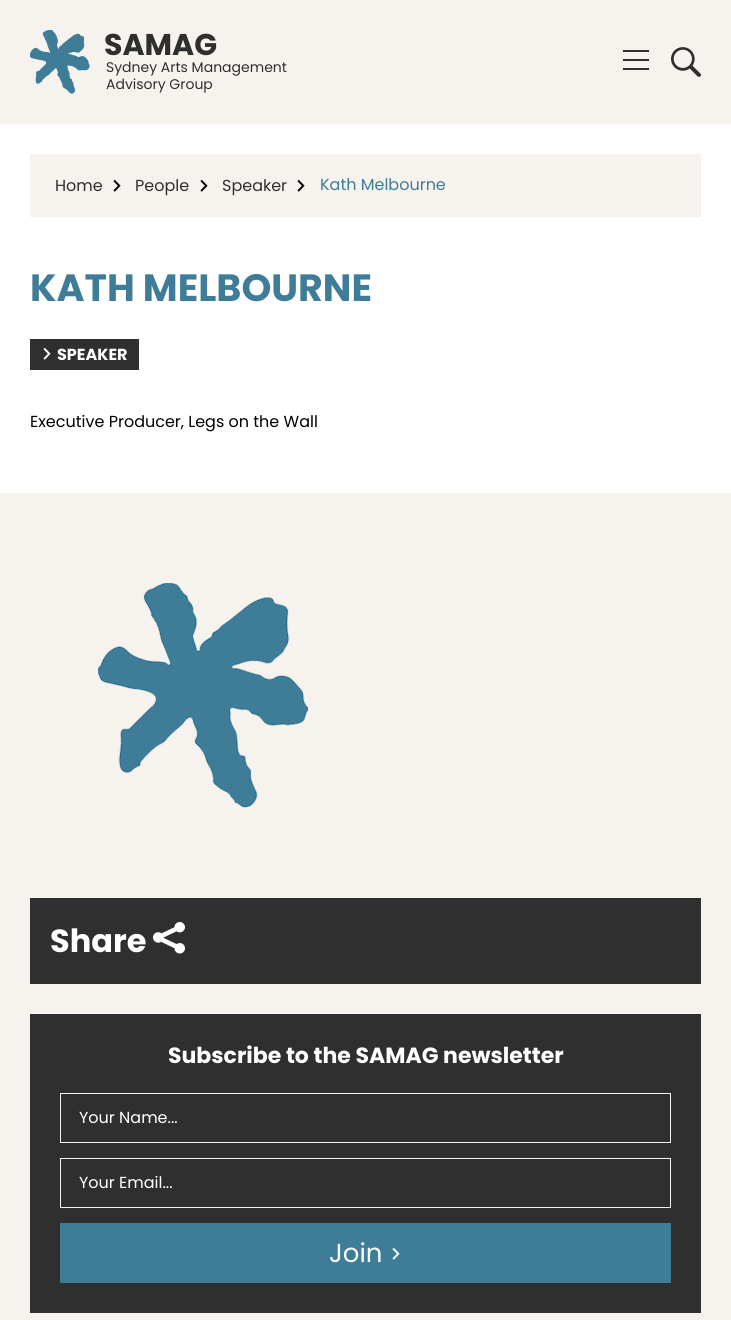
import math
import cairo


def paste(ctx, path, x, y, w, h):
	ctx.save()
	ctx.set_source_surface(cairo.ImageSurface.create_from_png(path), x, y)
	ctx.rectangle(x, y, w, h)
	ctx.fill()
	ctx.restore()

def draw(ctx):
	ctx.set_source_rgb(0.961, 0.949, 0.929)
	ctx.paint()
	paste(ctx, 'media/1.png', 30, 30, 60, 64)
	ctx.select_font_face('Poppins', cairo.FONT_SLANT_NORMAL, cairo.FONT_WEIGHT_BOLD)
	ctx.set_font_size(30)
	ctx.set_source_rgb(0.188, 0.184, 0.188)
	ctx.move_to(104, 55)
	ctx.show_text('SAMAG')
	ctx.select_font_face('Poppins')
	ctx.set_font_size(14)
	ctx.move_to(106, 72)
	ctx.show_text('Sydney Arts Management')
	ctx.move_to(106, 89)
	ctx.show_text('Advisory Group')
	ctx.rectangle(623, 59, 26, 2)
	ctx.rectangle(623, 50, 26, 2)
	ctx.rectangle(623, 68, 26, 2)
	ctx.fill()
	paste(ctx, 'media/2.png', 671, 47, 30, 30)
	ctx.set_source_rgb(1, 1, 1)
	ctx.rectangle(0, 124, 731, 369)
	ctx.fill()
	ctx.set_source_rgb(0.961, 0.949, 0.929)
	ctx.rectangle(30, 154, 671, 63)
	ctx.fill()
	ctx.set_font_size(16)
	ctx.set_source_rgb(0.188, 0.184, 0.188)
	ctx.move_to(55, 191)
	ctx.show_text('Home')
	paste(ctx, 'media/3.png', 113, 179, 8, 13)
	ctx.move_to(135, 191)
	ctx.show_text('People')
	paste(ctx, 'media/3.png', 200, 179, 8, 13)
	ctx.move_to(222, 191)
	ctx.show_text('Speaker')
	paste(ctx, 'media/3.png', 297, 179, 8, 13)
	ctx.set_source_rgb(0.243, 0.486, 0.596)
	ctx.move_to(320, 190)
	ctx.show_text('Kath Melbourne')
	ctx.select_font_face('Poppins', cairo.FONT_SLANT_NORMAL, cairo.FONT_WEIGHT_BOLD)
	ctx.set_font_size(38)
	ctx.move_to(30, 301)
	ctx.show_text('KATH MELBOURNE')
	ctx.set_source_rgb(0.188, 0.184, 0.188)
	ctx.rectangle(30, 339, 109, 31)
	ctx.fill()
	paste(ctx, 'media/4.png', 43, 347, 8, 13)
	ctx.set_font_size(16)
	ctx.set_source_rgb(1, 1, 1)
	ctx.move_to(57, 360)
	ctx.show_text('SPEAKER')
	ctx.select_font_face('Poppins')
	ctx.set_source_rgb(0, 0, 0)
	ctx.move_to(30, 427)
	ctx.show_text('Executive Producer, Legs on the Wall')
	paste(ctx, 'media/5.png', 98, 583, 210, 225)
	ctx.set_source_rgb(0.188, 0.184, 0.188)
	ctx.rectangle(30, 898, 671, 86)
	ctx.fill()
	ctx.select_font_face('Poppins', cairo.FONT_SLANT_NORMAL, cairo.FONT_WEIGHT_BOLD)
	ctx.set_font_size(32)
	ctx.set_source_rgb(1, 1, 1)
	ctx.move_to(50, 952)
	ctx.show_text('Share')
	paste(ctx, 'media/6.png', 153, 922, 32, 32)
	ctx.set_source_rgb(0.188, 0.184, 0.188)
	ctx.rectangle(30, 1014, 671, 299)
	ctx.fill()
	ctx.set_font_size(22)
	ctx.set_source_rgb(1, 1, 1)
	ctx.move_to(168, 1063)
	ctx.show_text('Subscribe to the SAMAG newsletter')
	ctx.rectangle(60.5, 1093.5, 610, 49)
	ctx.set_source_rgb(0.961, 0.949, 0.929)
	ctx.set_line_width(1)
	ctx.stroke()
	ctx.select_font_face('Poppins')
	ctx.set_font_size(16)
	ctx.set_source_rgb(1, 1, 1)
	ctx.move_to(79, 1123)
	ctx.show_text('Your Name...')
	ctx.rectangle(60.5, 1158.5, 610, 49)
	ctx.set_source_rgb(0.961, 0.949, 0.929)
	ctx.stroke()
	ctx.set_source_rgb(1, 1, 1)
	ctx.move_to(79, 1188)
	ctx.show_text('Your Email...')
	ctx.set_source_rgb(0.243, 0.486, 0.596)
	ctx.rectangle(60, 1223, 611, 60)
	ctx.fill()
	ctx.set_font_size(26)
	ctx.set_source_rgb(1, 1, 1)
	ctx.move_to(329, 1262)
	ctx.show_text('Join')
	paste(ctx, 'media/7.png', 392, 1247, 8, 13)


surface = cairo.ImageSurface(cairo.FORMAT_RGB24, 731, 1320)
ctx = cairo.Context(surface)
options = cairo.FontOptions()
options.set_hint_metrics(cairo.HINT_METRICS_OFF)
options.set_hint_style(cairo.HINT_STYLE_NONE)
ctx.set_font_options(options)
ctx.set_miter_limit(4)
draw(ctx)
surface.write_to_png('image.png')
